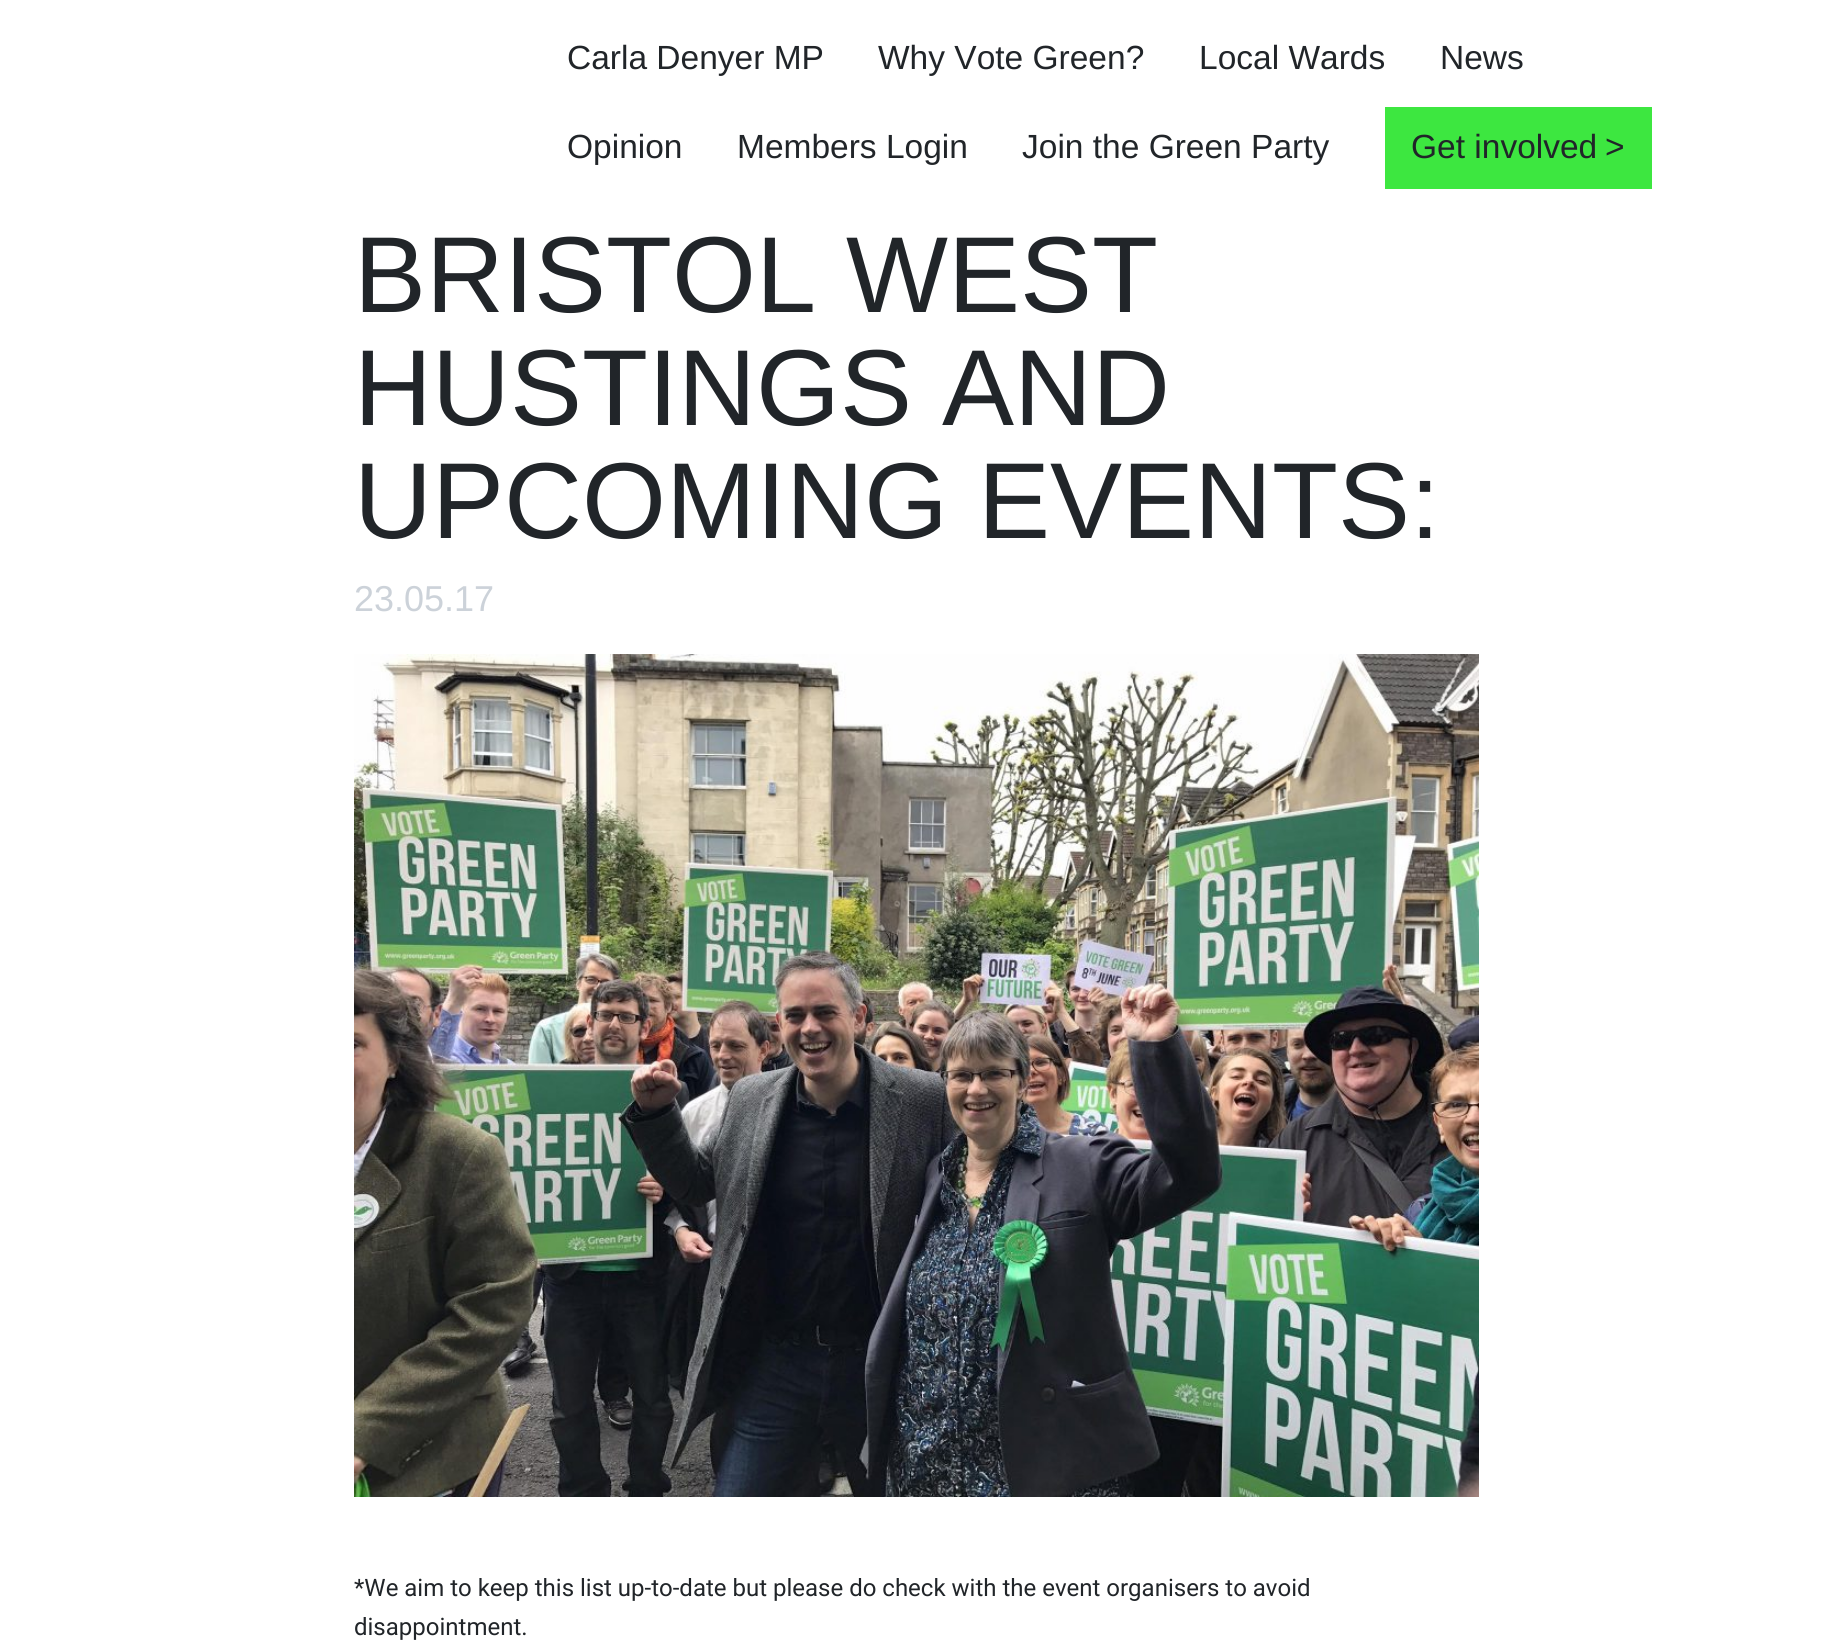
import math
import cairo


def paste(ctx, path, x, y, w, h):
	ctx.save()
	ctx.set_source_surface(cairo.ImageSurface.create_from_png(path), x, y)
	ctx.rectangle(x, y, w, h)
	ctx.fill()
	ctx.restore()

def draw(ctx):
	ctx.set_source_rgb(1, 1, 1)
	ctx.paint()
	ctx.select_font_face('Liberation Sans')
	ctx.set_font_size(33.5)
	ctx.set_source_rgb(0.129, 0.145, 0.161)
	for x, y, s in [
		(567, 69, 'Carla Denyer MP'),
		(878, 69, 'Why Vote Green?'),
		(1199, 69, 'Local Wards'),
		(1440, 69, 'News'),
		(567, 158, 'Opinion'),
		(737, 158, 'Members Login'),
		(1022, 158, 'Join the Green Party'),
	]:
		ctx.move_to(x, y)
		ctx.show_text(s)
	ctx.set_source_rgb(0.239, 0.906, 0.251)
	ctx.rectangle(1385, 107, 267, 82)
	ctx.fill()
	ctx.set_source_rgb(0.129, 0.145, 0.161)
	ctx.move_to(1411, 158)
	ctx.show_text('Get involved')
	ctx.move_to(1605, 158)
	ctx.show_text('>')
	ctx.set_font_size(108)
	for x, y, s in [
		(354, 312, 'BRISTOL WEST'),
		(354, 425, 'HUSTINGS AND'),
		(354, 538, 'UPCOMING EVENTS:'),
	]:
		ctx.move_to(x, y)
		ctx.show_text(s)
	ctx.set_font_size(36)
	ctx.set_source_rgb(0.8, 0.824, 0.851)
	ctx.move_to(354, 611)
	ctx.show_text('23.05.17')
	paste(ctx, 'media/1.png', 354, 654, 1125, 843)
	ctx.select_font_face('Roboto')
	ctx.set_font_size(24)
	ctx.set_source_rgb(0.129, 0.145, 0.161)
	ctx.move_to(354, 1596)
	ctx.show_text('*We aim to keep this list up-to-date but please do check with the event organisers to avoid')
	ctx.move_to(354, 1635)
	ctx.show_text('disappointment.')


surface = cairo.ImageSurface(cairo.FORMAT_RGB24, 1832, 1650)
ctx = cairo.Context(surface)
options = cairo.FontOptions()
options.set_hint_metrics(cairo.HINT_METRICS_OFF)
options.set_hint_style(cairo.HINT_STYLE_NONE)
ctx.set_font_options(options)
ctx.set_miter_limit(4)
draw(ctx)
surface.write_to_png('image.png')
